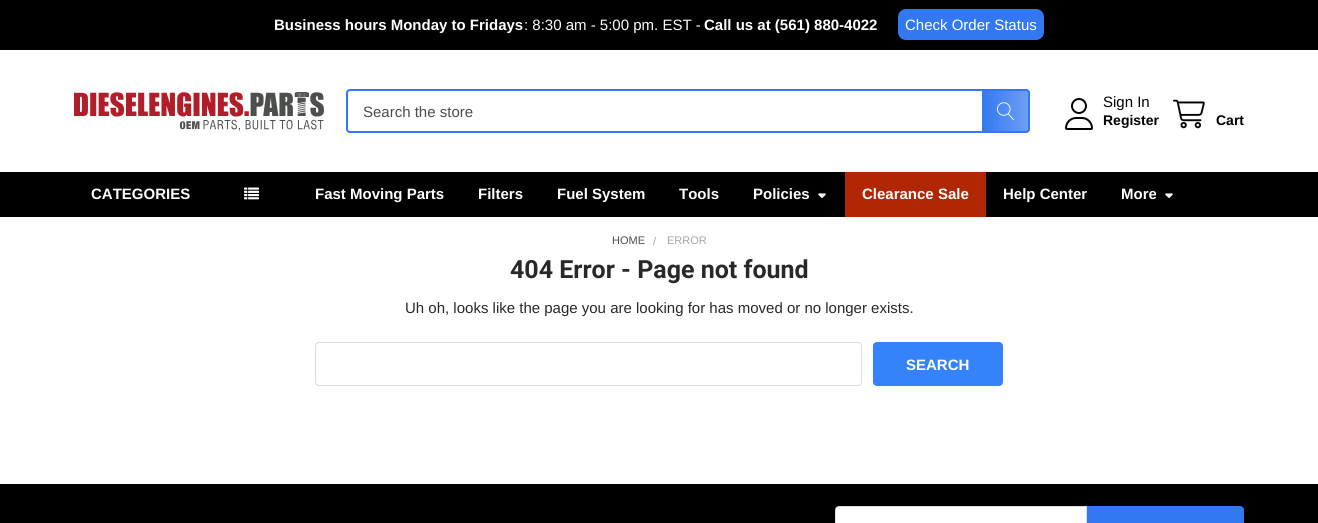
import math
import cairo


def round_path(ctx, x, y, w, h, r):
	ctx.new_sub_path()
	for i, (u, v) in enumerate([(x + w - r, y + h - r), (x + r, y + h - r), (x + r, y + r), (x + w - r, y + r)]):
		ctx.arc(u, v, r, i * math.pi / 2, (i + 1) * math.pi / 2)
	ctx.close_path()

def paste(ctx, path, x, y, w, h):
	ctx.save()
	ctx.set_source_surface(cairo.ImageSurface.create_from_png(path), x, y)
	ctx.rectangle(x, y, w, h)
	ctx.fill()
	ctx.restore()

def draw(ctx):
	ctx.set_source_rgb(1, 1, 1)
	ctx.paint()
	ctx.set_source_rgb(0, 0, 0)
	ctx.rectangle(0, 0, 1318, 50)
	ctx.fill()
	ctx.select_font_face('Liberation Sans', cairo.FONT_SLANT_NORMAL, cairo.FONT_WEIGHT_BOLD)
	ctx.set_font_size(15)
	ctx.set_source_rgb(1, 1, 1)
	ctx.move_to(274, 30)
	ctx.show_text('Business hours Monday to Fridays')
	ctx.select_font_face('Liberation Sans')
	ctx.move_to(524, 30)
	ctx.show_text(': 8:30 am - 5:00 pm. EST -')
	ctx.select_font_face('Liberation Sans', cairo.FONT_SLANT_NORMAL, cairo.FONT_WEIGHT_BOLD)
	ctx.move_to(704, 30)
	ctx.show_text('Call us at (561) 880-4022')
	ctx.set_source_rgb(0.196, 0.471, 0.941)
	round_path(ctx, 898, 9, 146, 31, 8)
	ctx.fill()
	ctx.select_font_face('Liberation Sans')
	ctx.set_source_rgb(1, 1, 1)
	ctx.move_to(905, 30)
	ctx.show_text('Check Order Status')
	paste(ctx, 'media/1.png', 74, 92, 250, 39)
	round_path(ctx, 347, 90, 682, 42, 3)
	ctx.set_source_rgb(0.196, 0.471, 0.941)
	ctx.stroke()
	ctx.set_source_rgb(0.294, 0.294, 0.294)
	ctx.move_to(363, 117)
	ctx.show_text('Search the store')
	gradient = cairo.LinearGradient(982, 111, 1030, 111)
	gradient.add_color_stop_rgba(0, 0.196, 0.471, 0.941, 1)
	gradient.add_color_stop_rgba(1, 0.196, 0.471, 0.941, 0.7)
	ctx.set_source(gradient)
	ctx.new_path()
	ctx.move_to(982, 89)
	ctx.line_to(1026, 89)
	ctx.curve_to(1028, 89, 1030, 91, 1030, 93)
	ctx.line_to(1030, 129)
	ctx.curve_to(1030, 131, 1028, 133, 1026, 133)
	ctx.line_to(982, 133)
	ctx.close_path()
	ctx.fill()
	paste(ctx, 'media/2.png', 997, 102, 17, 19)
	paste(ctx, 'media/3.png', 1065, 98, 28, 32)
	ctx.set_source_rgb(0, 0, 0)
	ctx.move_to(1103, 107)
	ctx.show_text('Sign In')
	ctx.select_font_face('Liberation Sans', cairo.FONT_SLANT_NORMAL, cairo.FONT_WEIGHT_BOLD)
	ctx.set_font_size(14)
	ctx.move_to(1103, 125)
	ctx.show_text('Register')
	paste(ctx, 'media/4.png', 1173, 99, 32, 30)
	ctx.move_to(1216, 125)
	ctx.show_text('Cart')
	ctx.rectangle(0, 172, 1318, 45)
	ctx.fill()
	ctx.set_font_size(15)
	ctx.set_source_rgb(1, 1, 1)
	ctx.move_to(91, 199)
	ctx.show_text('CATEGORIES')
	paste(ctx, 'media/5.png', 244, 187, 15, 13)
	for x, y, s in [
		(315, 199, 'Fast Moving Parts'),
		(478, 199, 'Filters'),
		(557, 199, 'Fuel System'),
		(679, 199, 'Tools'),
		(753, 199, 'Policies'),
	]:
		ctx.move_to(x, y)
		ctx.show_text(s)
	paste(ctx, 'media/6.png', 818, 193, 8, 5)
	ctx.set_source_rgb(0.694, 0.153, 0.016)
	ctx.rectangle(845, 172, 141, 45)
	ctx.fill()
	ctx.set_source_rgb(1, 1, 1)
	for x, y, s in [
		(862, 199, 'Clearance Sale'),
		(1003, 199, 'Help Center'),
		(1121, 199, 'More'),
	]:
		ctx.move_to(x, y)
		ctx.show_text(s)
	paste(ctx, 'media/6.png', 1165, 193, 8, 5)
	ctx.select_font_face('Liberation Sans')
	ctx.set_font_size(11)
	ctx.set_source_rgb(0.294, 0.294, 0.294)
	ctx.move_to(612, 244)
	ctx.show_text('HOME')
	ctx.set_source_rgb(0.647, 0.647, 0.647)
	ctx.move_to(653, 245)
	ctx.show_text('/')
	ctx.move_to(667, 244)
	ctx.show_text('ERROR')
	ctx.select_font_face('Roboto', cairo.FONT_SLANT_NORMAL, cairo.FONT_WEIGHT_BOLD)
	ctx.set_font_size(25)
	ctx.set_source_rgb(0.157, 0.157, 0.157)
	ctx.move_to(510, 278)
	ctx.show_text('404 Error - Page not found')
	ctx.select_font_face('Liberation Sans')
	ctx.set_font_size(15)
	ctx.move_to(405, 313)
	ctx.show_text('Uh oh, looks like the page you are looking for has moved or no longer exists.')
	round_path(ctx, 315.5, 342.5, 546, 43, 3.5)
	ctx.set_source_rgb(0.863, 0.863, 0.863)
	ctx.set_line_width(1)
	ctx.stroke()
	ctx.set_source_rgb(0.204, 0.514, 0.98)
	round_path(ctx, 873, 342, 130, 44, 4)
	ctx.fill()
	ctx.select_font_face('Liberation Sans', cairo.FONT_SLANT_NORMAL, cairo.FONT_WEIGHT_BOLD)
	ctx.set_source_rgb(1, 1, 1)
	ctx.move_to(906, 370)
	ctx.show_text('SEARCH')
	ctx.set_source_rgb(0, 0, 0)
	ctx.rectangle(0, 484, 1318, 39)
	ctx.fill()
	ctx.set_source_rgb(1, 1, 1)
	ctx.new_path()
	ctx.move_to(839, 506.5)
	ctx.line_to(1086.5, 506.5)
	ctx.line_to(1086.5, 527.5)
	ctx.line_to(839, 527.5)
	ctx.curve_to(837, 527.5, 835.5, 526, 835.5, 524)
	ctx.line_to(835.5, 510)
	ctx.curve_to(835.5, 508, 837, 506.5, 839, 506.5)
	ctx.close_path()
	ctx.fill_preserve()
	ctx.set_source_rgb(0.863, 0.863, 0.863)
	ctx.stroke()
	ctx.set_source_rgb(0.196, 0.471, 0.941)
	ctx.new_path()
	ctx.move_to(1087.5, 506.5)
	ctx.line_to(1240, 506.5)
	ctx.curve_to(1242, 506.5, 1243.5, 508, 1243.5, 510)
	ctx.line_to(1243.5, 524)
	ctx.curve_to(1243.5, 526, 1242, 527.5, 1240, 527.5)
	ctx.line_to(1087.5, 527.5)
	ctx.close_path()
	ctx.fill_preserve()
	ctx.stroke()


surface = cairo.ImageSurface(cairo.FORMAT_RGB24, 1318, 523)
ctx = cairo.Context(surface)
options = cairo.FontOptions()
options.set_hint_metrics(cairo.HINT_METRICS_OFF)
options.set_hint_style(cairo.HINT_STYLE_NONE)
ctx.set_font_options(options)
ctx.set_miter_limit(4)
draw(ctx)
surface.write_to_png('image.png')
